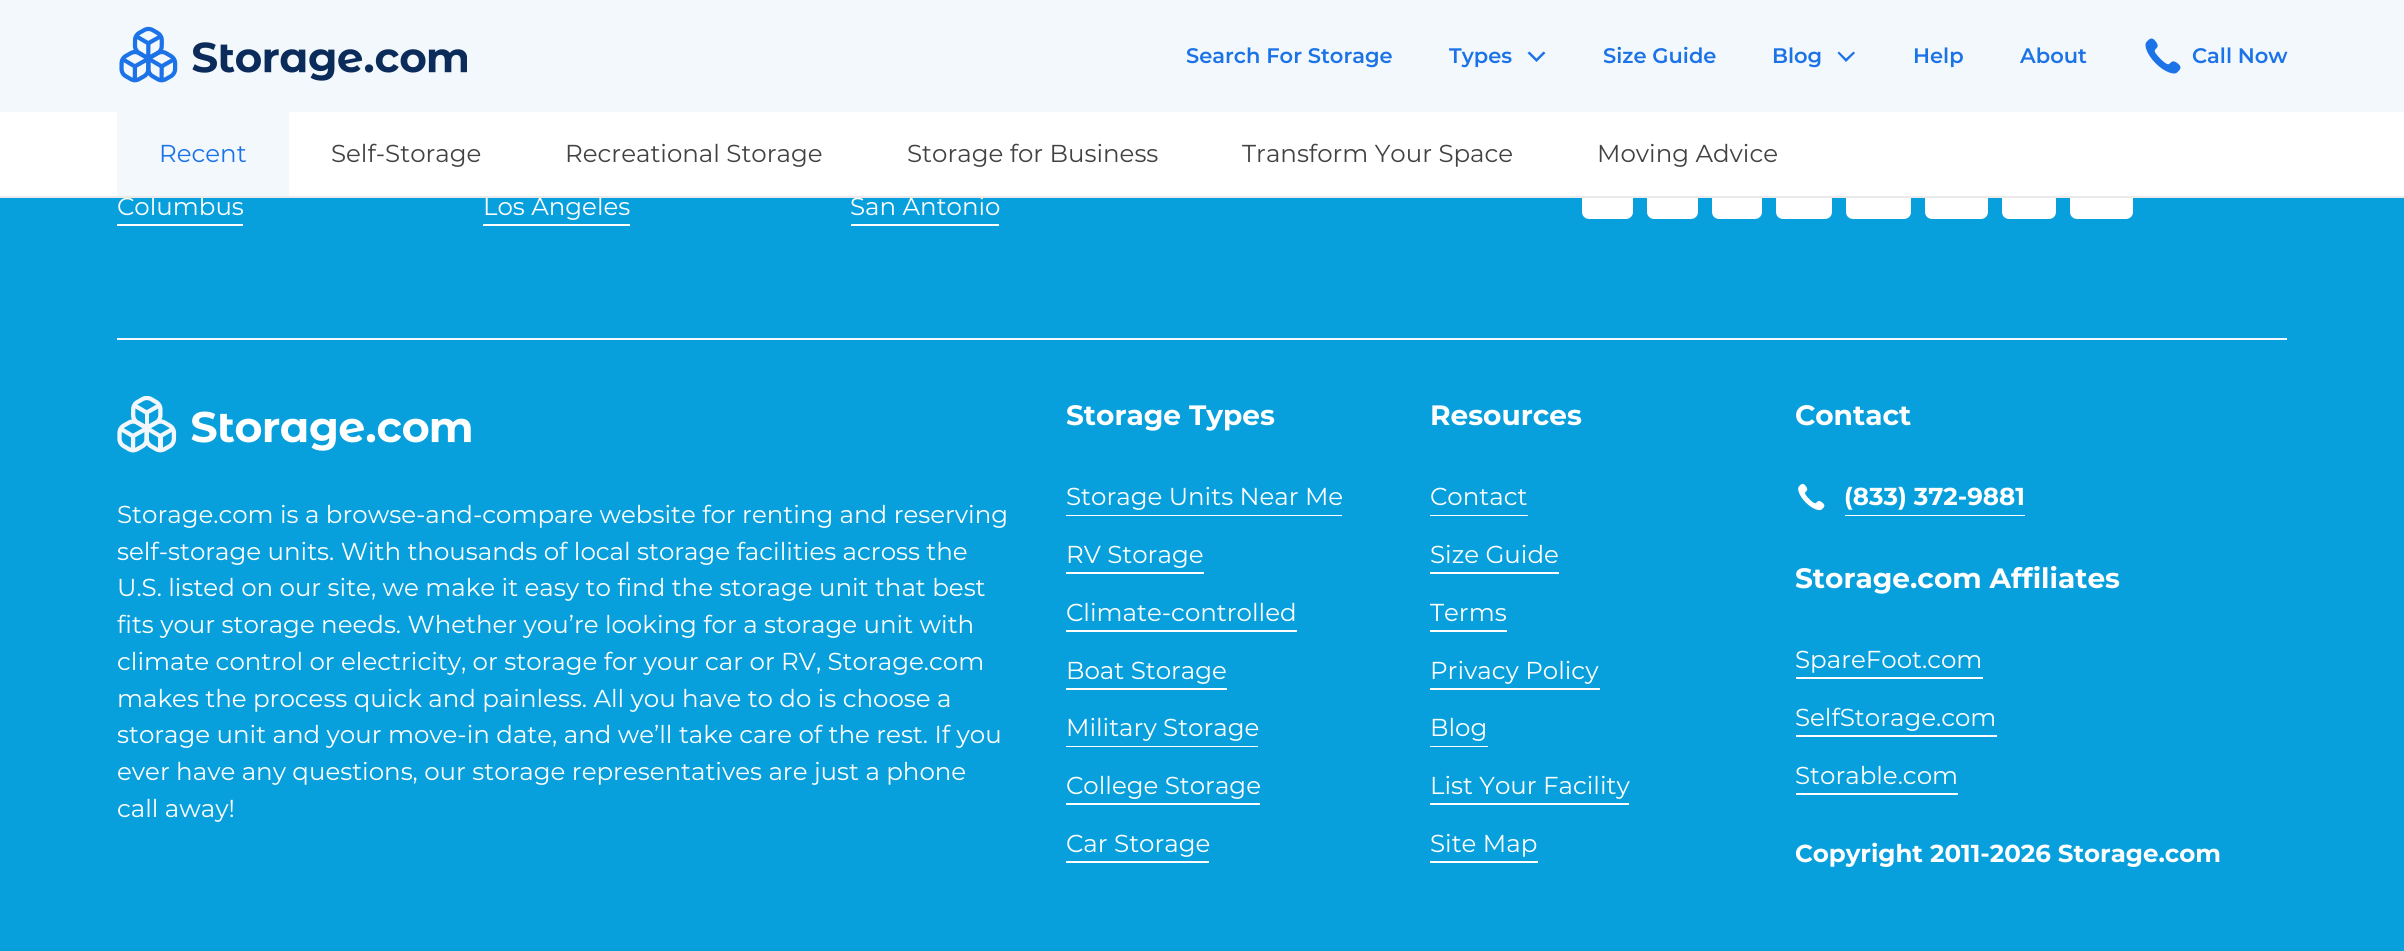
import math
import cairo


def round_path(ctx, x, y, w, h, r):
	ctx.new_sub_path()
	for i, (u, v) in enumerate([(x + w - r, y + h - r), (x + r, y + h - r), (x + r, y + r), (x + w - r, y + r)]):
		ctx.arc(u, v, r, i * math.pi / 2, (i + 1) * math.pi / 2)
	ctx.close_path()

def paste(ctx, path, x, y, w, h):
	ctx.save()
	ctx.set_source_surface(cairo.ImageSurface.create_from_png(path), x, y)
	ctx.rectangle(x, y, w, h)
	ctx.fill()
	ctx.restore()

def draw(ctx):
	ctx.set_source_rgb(0.031, 0.627, 0.867)
	ctx.paint()
	ctx.set_source_rgb(0.953, 0.969, 0.988)
	ctx.rectangle(0, 0, 2404, 112)
	ctx.fill()
	paste(ctx, 'media/1.png', 119, 26, 348, 57)
	ctx.select_font_face('Montserrat SemiBold')
	ctx.set_font_size(21)
	ctx.set_source_rgb(0.11, 0.447, 0.906)
	ctx.move_to(1186, 63)
	ctx.show_text('Search For Storage')
	ctx.move_to(1449, 63)
	ctx.show_text('Types')
	ctx.new_path()
	ctx.move_to(1536.5, 62)
	ctx.line_to(1527.5, 53)
	ctx.line_to(1529.5, 51.5)
	ctx.line_to(1536.5, 58.5)
	ctx.line_to(1543.5, 51.5)
	ctx.line_to(1545.5, 53)
	ctx.close_path()
	ctx.fill()
	ctx.move_to(1603, 63)
	ctx.show_text('Size Guide')
	ctx.move_to(1772, 63)
	ctx.show_text('Blog')
	ctx.new_path()
	ctx.move_to(1846, 62)
	ctx.line_to(1837.5, 53)
	ctx.line_to(1839, 51.5)
	ctx.line_to(1846, 58.5)
	ctx.line_to(1853.5, 51.5)
	ctx.line_to(1855, 53)
	ctx.close_path()
	ctx.fill()
	ctx.move_to(1913, 63)
	ctx.show_text('Help')
	ctx.move_to(2020, 63)
	ctx.show_text('About')
	paste(ctx, 'media/2.png', 2145, 38, 36, 36)
	ctx.move_to(2192, 63)
	ctx.show_text('Call Now')
	ctx.set_source_rgb(1, 1, 1)
	round_path(ctx, 1582, 166, 51, 53, 7)
	ctx.fill()
	round_path(ctx, 1647, 166, 51, 53, 7)
	ctx.fill()
	round_path(ctx, 1712, 166, 50, 53, 7)
	ctx.fill()
	round_path(ctx, 1776, 166, 56, 53, 7)
	ctx.fill()
	round_path(ctx, 1846, 166, 65, 53, 7)
	ctx.fill()
	round_path(ctx, 1925, 166, 63, 53, 7)
	ctx.fill()
	round_path(ctx, 2002, 166, 54, 53, 7)
	ctx.fill()
	round_path(ctx, 2070, 166, 63, 53, 7)
	ctx.fill()
	ctx.rectangle(0, 112, 2404, 84)
	ctx.fill()
	ctx.select_font_face('Montserrat')
	ctx.set_font_size(24.5)
	for x, y, s in [
		(117, 215, 'Columbus'),
		(483, 215, 'Los Angeles'),
		(850, 215, 'San Antonio'),
	]:
		ctx.move_to(x, y)
		ctx.show_text(s)
	ctx.set_source_rgb(0.918, 0.914, 0.914)
	ctx.rectangle(0, 196, 2404, 2)
	ctx.fill()
	ctx.set_source_rgb(0.953, 0.969, 0.988)
	ctx.rectangle(117, 112, 172, 84)
	ctx.fill()
	ctx.set_source_rgb(0.11, 0.447, 0.906)
	ctx.move_to(159, 162)
	ctx.show_text('Recent')
	ctx.set_source_rgb(0.259, 0.259, 0.259)
	for x, y, s in [
		(331, 162, 'Self-Storage'),
		(565, 162, 'Recreational Storage'),
		(907, 162, 'Storage for Business'),
		(1242, 162, 'Transform Your Space'),
		(1597, 162, 'Moving Advice'),
	]:
		ctx.move_to(x, y)
		ctx.show_text(s)
	ctx.set_source_rgb(0.953, 0.969, 0.988)
	ctx.rectangle(117, 338, 2170, 2)
	ctx.fill()
	ctx.set_source_rgb(1, 1, 1)
	ctx.rectangle(117, 224, 126, 2)
	ctx.rectangle(483, 224, 147, 2)
	ctx.rectangle(851, 224, 148, 2)
	ctx.fill()
	paste(ctx, 'media/3.png', 117, 396, 354, 57)
	for x, y, s in [
		(117, 523, 'Storage.com is a browse-and-compare website for renting and reserving'),
		(117, 560, 'self-storage units. With thousands of local storage facilities across the'),
		(117, 596, 'U.S. listed on our site, we make it easy to find the storage unit that best'),
		(117, 633, 'fits your storage needs. Whether you’re looking for a storage unit with'),
		(117, 670, 'climate control or electricity, or storage for your car or RV, Storage.com'),
		(117, 707, 'makes the process quick and painless. All you have to do is choose a'),
		(117, 743, 'storage unit and your move-in date, and we’ll take care of the rest. If you'),
		(117, 780, 'ever have any questions, our storage representatives are just a phone'),
		(117, 817, 'call away!'),
	]:
		ctx.move_to(x, y)
		ctx.show_text(s)
	ctx.select_font_face('Montserrat', cairo.FONT_SLANT_NORMAL, cairo.FONT_WEIGHT_BOLD)
	ctx.set_font_size(28)
	ctx.move_to(1066, 425)
	ctx.show_text('Storage Types')
	ctx.rectangle(1066, 515, 276, 1)
	ctx.fill()
	ctx.select_font_face('Montserrat')
	ctx.set_font_size(24.5)
	ctx.move_to(1066, 505)
	ctx.show_text('Storage Units Near Me')
	ctx.rectangle(1066, 572, 138, 2)
	ctx.fill()
	ctx.move_to(1066, 563)
	ctx.show_text('RV Storage')
	ctx.rectangle(1066, 630, 231, 2)
	ctx.fill()
	ctx.move_to(1066, 621)
	ctx.show_text('Climate-controlled')
	ctx.rectangle(1066, 688, 161, 2)
	ctx.fill()
	ctx.move_to(1066, 679)
	ctx.show_text('Boat Storage')
	ctx.rectangle(1066, 746, 192, 1)
	ctx.fill()
	ctx.move_to(1066, 736)
	ctx.show_text('Military Storage')
	ctx.rectangle(1066, 803, 194, 2)
	ctx.fill()
	ctx.move_to(1066, 794)
	ctx.show_text('College Storage')
	ctx.rectangle(1066, 861, 143, 2)
	ctx.fill()
	ctx.move_to(1066, 852)
	ctx.show_text('Car Storage')
	ctx.select_font_face('Montserrat', cairo.FONT_SLANT_NORMAL, cairo.FONT_WEIGHT_BOLD)
	ctx.set_font_size(28)
	ctx.move_to(1430, 425)
	ctx.show_text('Resources')
	ctx.rectangle(1430, 515, 98, 1)
	ctx.fill()
	ctx.select_font_face('Montserrat')
	ctx.set_font_size(24.5)
	ctx.move_to(1430, 505)
	ctx.show_text('Contact')
	ctx.rectangle(1430, 572, 129, 2)
	ctx.fill()
	ctx.move_to(1430, 563)
	ctx.show_text('Size Guide')
	ctx.rectangle(1430, 630, 77, 2)
	ctx.fill()
	ctx.move_to(1430, 621)
	ctx.show_text('Terms')
	ctx.rectangle(1430, 688, 170, 2)
	ctx.fill()
	ctx.move_to(1430, 679)
	ctx.show_text('Privacy Policy')
	ctx.rectangle(1430, 746, 58, 1)
	ctx.fill()
	ctx.move_to(1430, 736)
	ctx.show_text('Blog')
	ctx.rectangle(1430, 803, 199, 2)
	ctx.fill()
	ctx.move_to(1430, 794)
	ctx.show_text('List Your Facility')
	ctx.rectangle(1430, 861, 108, 2)
	ctx.fill()
	ctx.move_to(1430, 852)
	ctx.show_text('Site Map')
	ctx.select_font_face('Montserrat', cairo.FONT_SLANT_NORMAL, cairo.FONT_WEIGHT_BOLD)
	ctx.set_font_size(28)
	ctx.move_to(1795, 425)
	ctx.show_text('Contact')
	paste(ctx, 'media/4.png', 1798, 483, 27, 28)
	ctx.rectangle(1845, 515, 180, 1)
	ctx.fill()
	ctx.set_font_size(24.5)
	ctx.move_to(1844, 505)
	ctx.show_text('(833) 372-9881')
	ctx.set_font_size(28)
	ctx.move_to(1795, 588)
	ctx.show_text('Storage.com Affiliates')
	ctx.rectangle(1796, 677, 187, 2)
	ctx.fill()
	ctx.select_font_face('Montserrat')
	ctx.set_font_size(24.5)
	ctx.move_to(1795, 668)
	ctx.show_text('SpareFoot.com')
	ctx.rectangle(1796, 735, 201, 2)
	ctx.fill()
	ctx.move_to(1795, 726)
	ctx.show_text('SelfStorage.com')
	ctx.rectangle(1796, 793, 162, 2)
	ctx.fill()
	ctx.move_to(1795, 784)
	ctx.show_text('Storable.com')
	ctx.select_font_face('Montserrat', cairo.FONT_SLANT_NORMAL, cairo.FONT_WEIGHT_BOLD)
	ctx.move_to(1795, 862)
	ctx.show_text('Copyright 2011-2026 Storage.com')


surface = cairo.ImageSurface(cairo.FORMAT_RGB24, 2404, 951)
ctx = cairo.Context(surface)
options = cairo.FontOptions()
options.set_hint_metrics(cairo.HINT_METRICS_OFF)
options.set_hint_style(cairo.HINT_STYLE_NONE)
ctx.set_font_options(options)
ctx.set_miter_limit(4)
draw(ctx)
surface.write_to_png('image.png')
